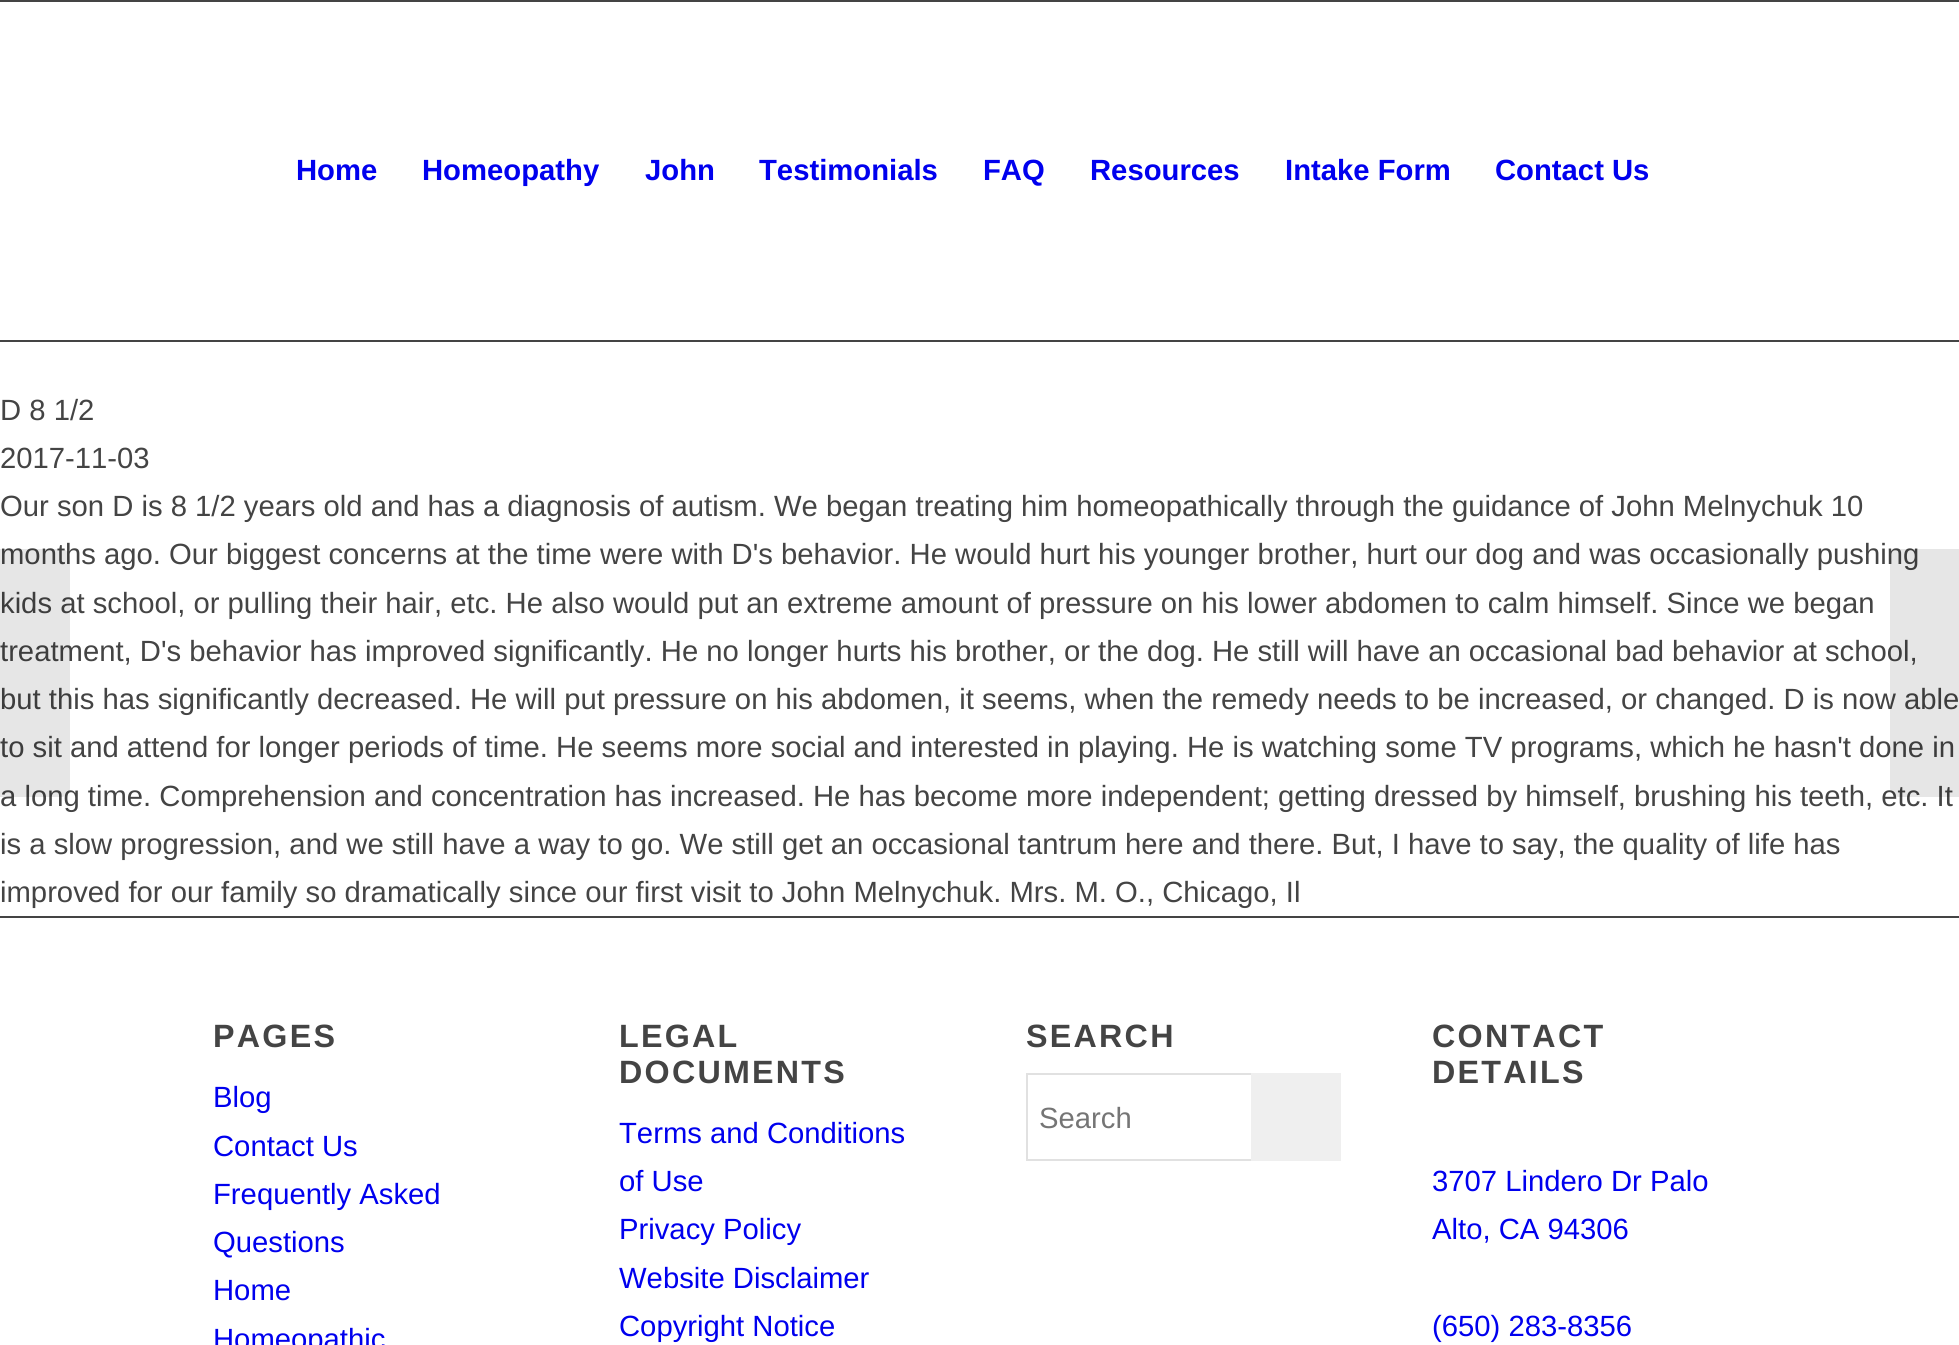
import math
import cairo


def write_spaced(ctx, x, y, s, letter, word):
	ctx.move_to(x, y)
	for ch in s:
		ctx.show_text(ch)
		ctx.rel_move_to(letter + word * (ch == ' '), 0)

def draw(ctx):
	ctx.set_source_rgb(1, 1, 1)
	ctx.paint()
	ctx.set_source_rgb(0.267, 0.267, 0.267)
	ctx.rectangle(0, 0, 1959, 2)
	ctx.fill()
	ctx.rectangle(0, 340, 1959, 2)
	ctx.fill()
	ctx.select_font_face('Liberation Sans', cairo.FONT_SLANT_NORMAL, cairo.FONT_WEIGHT_BOLD)
	ctx.set_font_size(29.25)
	ctx.set_source_rgb(0, 0, 0.933)
	for x, y, s in [
		(296, 180, 'Home'),
		(422, 180, 'Homeopathy'),
		(645, 180, 'John'),
		(759, 180, 'Testimonials'),
		(983, 180, 'FAQ'),
		(1090, 180, 'Resources'),
		(1285, 180, 'Intake Form'),
		(1495, 180, 'Contact Us'),
	]:
		ctx.move_to(x, y)
		ctx.show_text(s)
	ctx.select_font_face('Liberation Sans')
	ctx.set_source_rgb(0.267, 0.267, 0.267)
	for x, y, s in [
		(0, 420, 'D 8 1/2'),
		(0, 468, '2017-11-03'),
		(0, 516, 'Our son D is 8 1/2 years old and has a diagnosis of autism. We began treating him homeopathically through the guidance of John Melnychuk 10'),
		(0, 564, 'months ago. Our biggest concerns at the time were with D\'s behavior. He would hurt his younger brother, hurt our dog and was occasionally pushing'),
		(0, 613, 'kids at school, or pulling their hair, etc. He also would put an extreme amount of pressure on his lower abdomen to calm himself. Since we began'),
		(0, 661, 'treatment, D\'s behavior has improved significantly. He no longer hurts his brother, or the dog. He still will have an occasional bad behavior at school,'),
		(0, 709, 'but this has significantly decreased. He will put pressure on his abdomen, it seems, when the remedy needs to be increased, or changed. D is now able'),
		(0, 757, 'to sit and attend for longer periods of time. He seems more social and interested in playing. He is watching some TV programs, which he hasn\'t done in'),
		(0, 806, 'a long time. Comprehension and concentration has increased. He has become more independent; getting dressed by himself, brushing his teeth, etc. It'),
		(0, 854, 'is a slow progression, and we still have a way to go. We still get an occasional tantrum here and there. But, I have to say, the quality of life has'),
		(0, 902, 'improved for our family so dramatically since our first visit to John Melnychuk. Mrs. M. O., Chicago, Il'),
	]:
		ctx.move_to(x, y)
		ctx.show_text(s)
	ctx.rectangle(0, 916, 1959, 2)
	ctx.fill()
	ctx.select_font_face('Liberation Sans', cairo.FONT_SLANT_NORMAL, cairo.FONT_WEIGHT_BOLD)
	ctx.set_font_size(32.25)
	write_spaced(ctx, 213, 1047, 'PAGES', 2.25, 0)
	ctx.select_font_face('Liberation Sans')
	ctx.set_font_size(29.25)
	ctx.set_source_rgb(0, 0, 0.933)
	for x, y, s in [
		(213, 1107, 'Blog'),
		(213, 1156, 'Contact Us'),
		(213, 1204, 'Frequently Asked'),
		(213, 1252, 'Questions'),
		(213, 1300, 'Home'),
		(213, 1349, 'Homeopathic'),
	]:
		ctx.move_to(x, y)
		ctx.show_text(s)
	ctx.select_font_face('Liberation Sans', cairo.FONT_SLANT_NORMAL, cairo.FONT_WEIGHT_BOLD)
	ctx.set_font_size(32.25)
	ctx.set_source_rgb(0.267, 0.267, 0.267)
	write_spaced(ctx, 619, 1047, 'LEGAL', 2.25, 0)
	write_spaced(ctx, 619, 1083, 'DOCUMENTS', 2.25, 0)
	ctx.select_font_face('Liberation Sans')
	ctx.set_font_size(29.25)
	ctx.set_source_rgb(0, 0, 0.933)
	for x, y, s in [
		(619, 1143, 'Terms and Conditions'),
		(619, 1191, 'of Use'),
		(619, 1239, 'Privacy Policy'),
		(619, 1288, 'Website Disclaimer'),
		(619, 1336, 'Copyright Notice'),
	]:
		ctx.move_to(x, y)
		ctx.show_text(s)
	ctx.select_font_face('Liberation Sans', cairo.FONT_SLANT_NORMAL, cairo.FONT_WEIGHT_BOLD)
	ctx.set_font_size(32.25)
	ctx.set_source_rgb(0.267, 0.267, 0.267)
	write_spaced(ctx, 1026, 1047, 'SEARCH', 2.25, 0)
	ctx.rectangle(1027, 1074, 313, 86)
	ctx.set_source_rgb(0.882, 0.882, 0.882)
	ctx.stroke()
	ctx.select_font_face('Liberation Sans')
	ctx.set_font_size(29.25)
	ctx.set_source_rgb(0.459, 0.459, 0.459)
	ctx.move_to(1039, 1128)
	ctx.show_text('Search')
	ctx.set_source_rgb(0.937, 0.937, 0.937)
	ctx.rectangle(1251, 1073, 90, 88)
	ctx.fill()
	ctx.select_font_face('Liberation Sans', cairo.FONT_SLANT_NORMAL, cairo.FONT_WEIGHT_BOLD)
	ctx.set_font_size(32.25)
	ctx.set_source_rgb(0.267, 0.267, 0.267)
	write_spaced(ctx, 1432, 1047, 'CONTACT', 2.25, 0)
	write_spaced(ctx, 1432, 1083, 'DETAILS', 2.25, 0)
	ctx.select_font_face('Liberation Sans')
	ctx.set_font_size(29.25)
	ctx.set_source_rgb(0, 0, 0.933)
	for x, y, s in [
		(1432, 1191, '3707 Lindero Dr Palo'),
		(1432, 1239, 'Alto, CA 94306'),
		(1432, 1336, '(650) 283-8356'),
	]:
		ctx.move_to(x, y)
		ctx.show_text(s)
	ctx.set_source_rgba(0, 0, 0, 0.1)
	ctx.new_path()
	ctx.move_to(0, 549)
	ctx.line_to(61, 549)
	ctx.curve_to(66, 549, 70, 553, 70, 558)
	ctx.line_to(70, 788)
	ctx.curve_to(70, 793, 66, 797, 61, 797)
	ctx.line_to(0, 797)
	ctx.close_path()
	ctx.fill()
	ctx.new_path()
	ctx.move_to(1899, 549)
	ctx.line_to(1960, 549)
	ctx.line_to(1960, 797)
	ctx.line_to(1899, 797)
	ctx.curve_to(1894, 797, 1890, 793, 1890, 788)
	ctx.line_to(1890, 558)
	ctx.curve_to(1890, 553, 1894, 549, 1899, 549)
	ctx.close_path()
	ctx.fill()


surface = cairo.ImageSurface(cairo.FORMAT_RGB24, 1959, 1345)
ctx = cairo.Context(surface)
options = cairo.FontOptions()
options.set_hint_metrics(cairo.HINT_METRICS_OFF)
options.set_hint_style(cairo.HINT_STYLE_NONE)
ctx.set_font_options(options)
ctx.set_miter_limit(4)
draw(ctx)
surface.write_to_png('image.png')
